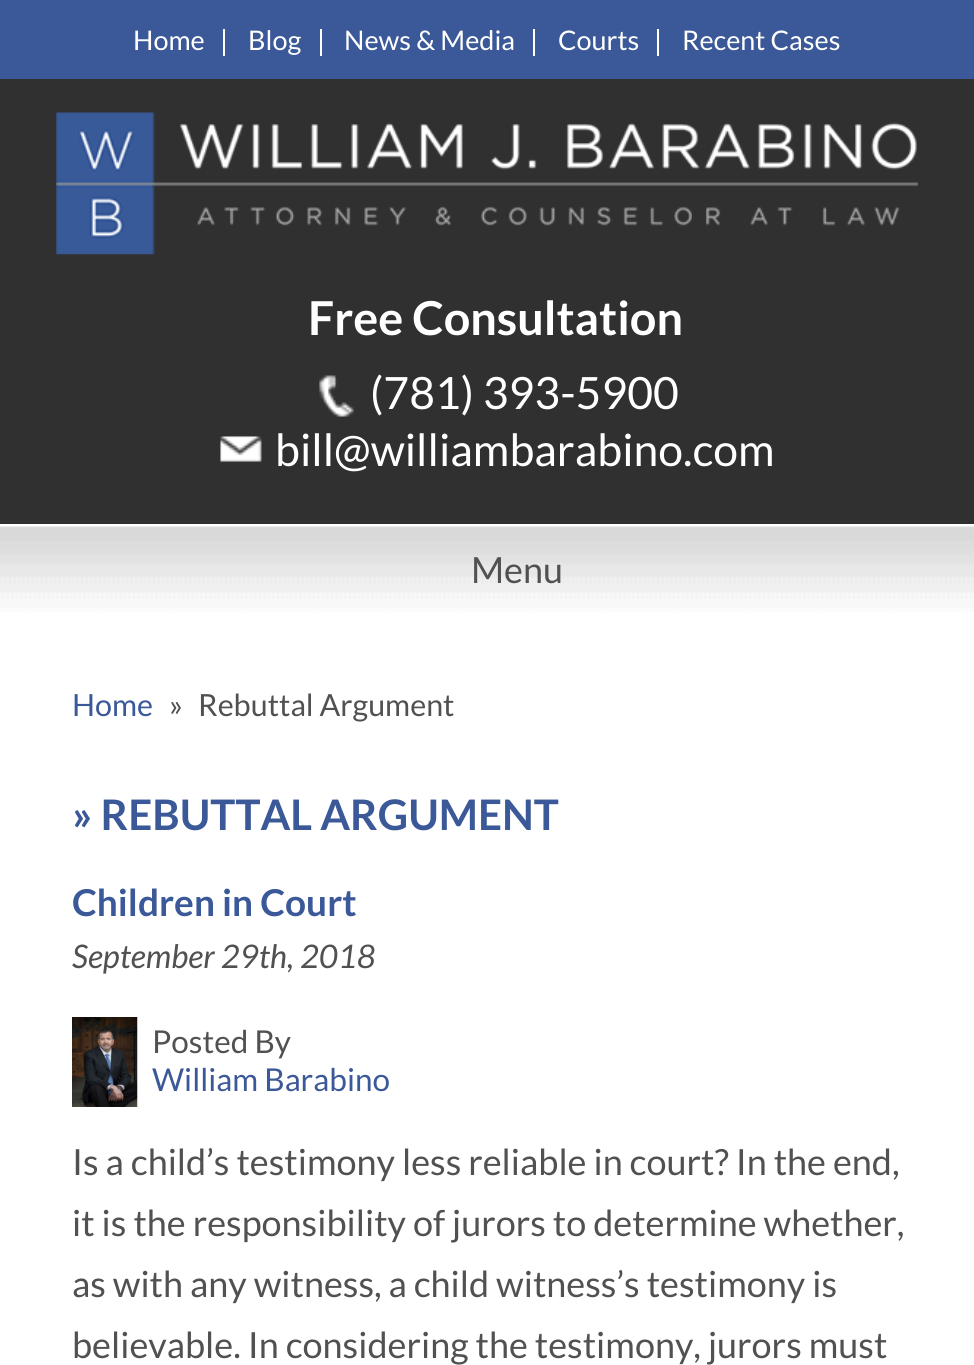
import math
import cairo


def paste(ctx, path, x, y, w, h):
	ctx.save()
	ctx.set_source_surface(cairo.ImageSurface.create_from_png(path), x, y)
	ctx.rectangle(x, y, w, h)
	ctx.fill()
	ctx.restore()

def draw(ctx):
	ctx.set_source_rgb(1, 1, 1)
	ctx.paint()
	paste(ctx, 'media/1.png', 0, 524, 974, 841)
	ctx.set_source_rgb(0.231, 0.349, 0.596)
	ctx.rectangle(0, 0, 974, 79)
	ctx.fill()
	ctx.set_source_rgb(1, 1, 1)
	ctx.rectangle(223, 29, 2, 27)
	ctx.fill()
	ctx.select_font_face('Lato')
	ctx.set_font_size(27)
	ctx.move_to(133, 50)
	ctx.show_text('Home')
	ctx.rectangle(320, 29, 2, 27)
	ctx.fill()
	ctx.move_to(248, 50)
	ctx.show_text('Blog')
	ctx.rectangle(533, 29, 2, 27)
	ctx.fill()
	ctx.move_to(344, 50)
	ctx.show_text('News & Media')
	ctx.rectangle(657, 29, 2, 27)
	ctx.fill()
	ctx.move_to(558, 50)
	ctx.show_text('Courts')
	ctx.move_to(682, 50)
	ctx.show_text('Recent Cases')
	ctx.set_source_rgb(0.188, 0.188, 0.188)
	ctx.rectangle(0, 79, 974, 445)
	ctx.fill()
	paste(ctx, 'media/2.png', 56, 112, 862, 143)
	ctx.select_font_face('Lato', cairo.FONT_SLANT_NORMAL, cairo.FONT_WEIGHT_BOLD)
	ctx.set_font_size(46.75)
	ctx.set_source_rgb(1, 1, 1)
	ctx.move_to(308, 335)
	ctx.show_text('Free Consultation')
	paste(ctx, 'media/3.png', 319, 375, 35, 42)
	ctx.select_font_face('Lato')
	ctx.set_font_size(44.5)
	ctx.move_to(370, 409)
	ctx.show_text('(781) 393-5900')
	paste(ctx, 'media/4.png', 220, 436, 42, 26)
	ctx.move_to(275, 466)
	ctx.show_text('bill@williambarabino.com')
	paste(ctx, 'media/5.png', 0, 526, 974, 86)
	ctx.set_font_size(36)
	ctx.set_source_rgb(0.318, 0.318, 0.318)
	ctx.move_to(471, 583)
	ctx.show_text('Menu')
	ctx.set_font_size(30.5)
	ctx.set_source_rgb(0.231, 0.349, 0.596)
	ctx.move_to(72, 716)
	ctx.show_text('Home')
	ctx.set_source_rgb(0.318, 0.318, 0.318)
	ctx.move_to(169, 716)
	ctx.show_text('»')
	ctx.move_to(198, 716)
	ctx.show_text('Rebuttal Argument')
	ctx.select_font_face('Lato', cairo.FONT_SLANT_NORMAL, cairo.FONT_WEIGHT_BOLD)
	ctx.set_font_size(42.1)
	ctx.set_source_rgb(0.231, 0.349, 0.596)
	ctx.move_to(72, 830)
	ctx.show_text('» REBUTTAL ARGUMENT')
	ctx.set_font_size(37)
	ctx.move_to(72, 916)
	ctx.show_text('Children in Court')
	ctx.select_font_face('Lato', cairo.FONT_SLANT_ITALIC)
	ctx.set_font_size(32.5)
	ctx.set_source_rgb(0.318, 0.318, 0.318)
	ctx.move_to(72, 968)
	ctx.show_text('September 29th, 2018')
	paste(ctx, 'media/6.png', 72, 1017, 66, 90)
	ctx.select_font_face('Lato')
	ctx.set_font_size(31.5)
	ctx.move_to(152, 1053)
	ctx.show_text('Posted By')
	ctx.set_source_rgb(0.231, 0.349, 0.596)
	ctx.move_to(152, 1091)
	ctx.show_text('William Barabino')
	ctx.set_font_size(36)
	ctx.set_source_rgb(0.318, 0.318, 0.318)
	for x, y, s in [
		(72, 1175, 'Is a child’s testimony less reliable in court? In the end,'),
		(72, 1236, 'it is the responsibility of jurors to determine whether,'),
		(72, 1297, 'as with any witness, a child witness’s testimony is'),
		(72, 1358, 'believable. In considering the testimony, jurors must'),
	]:
		ctx.move_to(x, y)
		ctx.show_text(s)


surface = cairo.ImageSurface(cairo.FORMAT_RGB24, 974, 1365)
ctx = cairo.Context(surface)
options = cairo.FontOptions()
options.set_hint_metrics(cairo.HINT_METRICS_OFF)
options.set_hint_style(cairo.HINT_STYLE_NONE)
ctx.set_font_options(options)
ctx.set_miter_limit(4)
draw(ctx)
surface.write_to_png('image.png')
